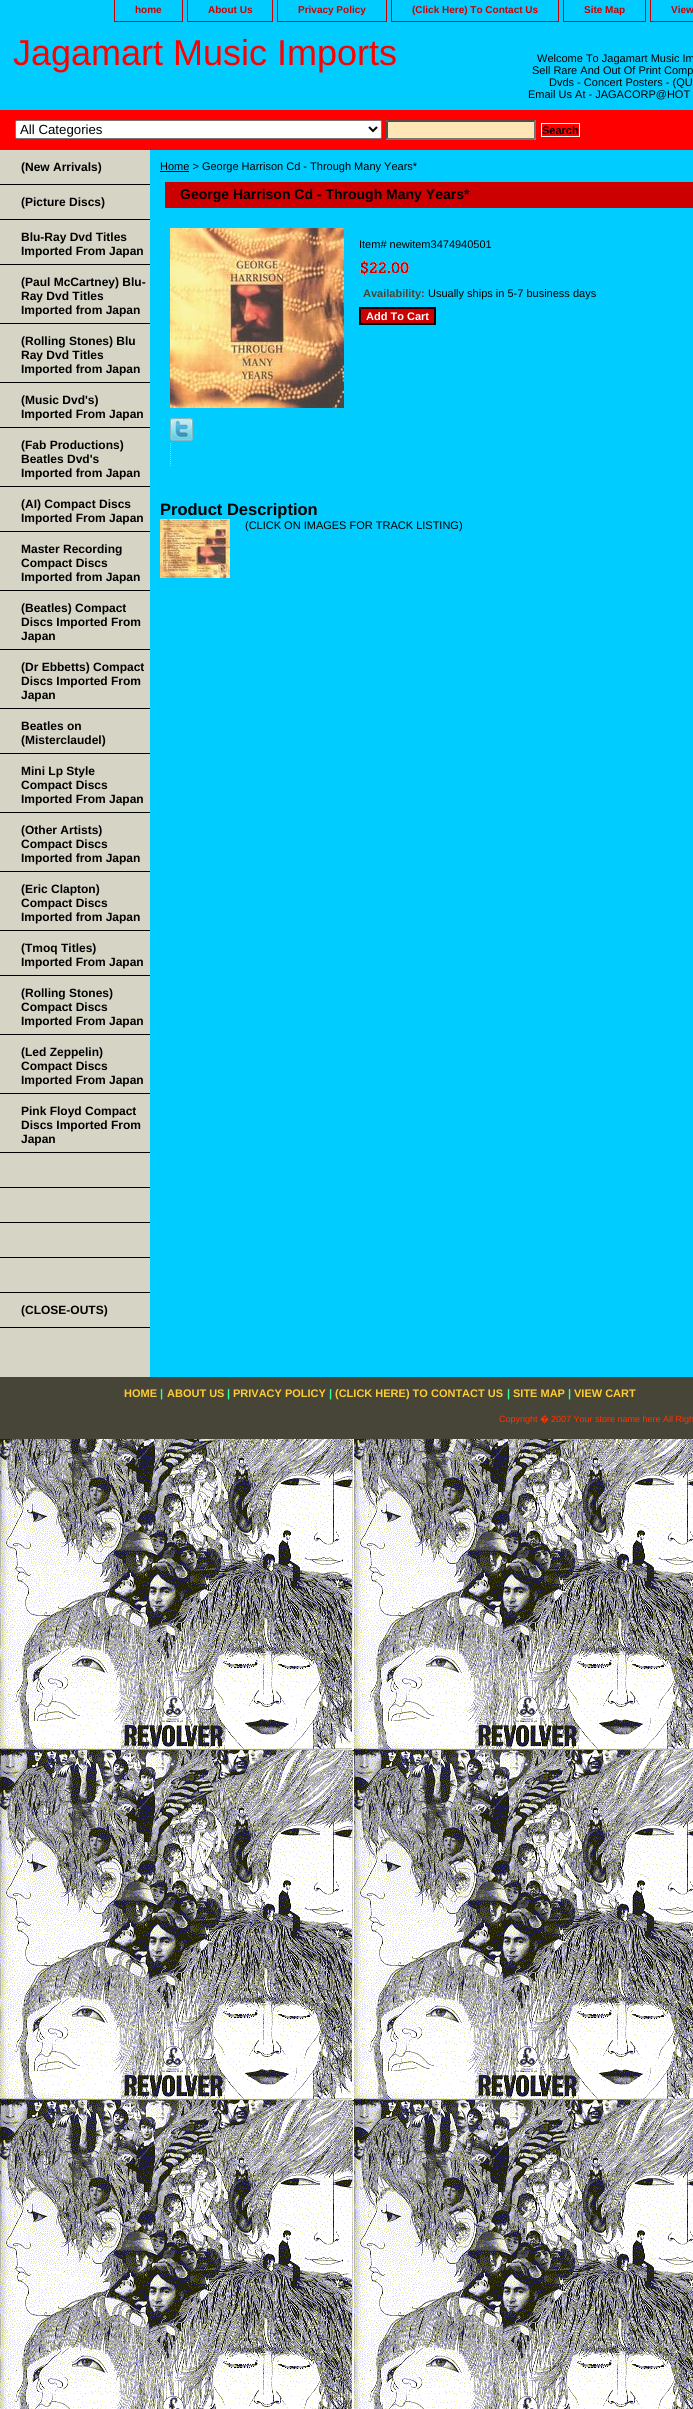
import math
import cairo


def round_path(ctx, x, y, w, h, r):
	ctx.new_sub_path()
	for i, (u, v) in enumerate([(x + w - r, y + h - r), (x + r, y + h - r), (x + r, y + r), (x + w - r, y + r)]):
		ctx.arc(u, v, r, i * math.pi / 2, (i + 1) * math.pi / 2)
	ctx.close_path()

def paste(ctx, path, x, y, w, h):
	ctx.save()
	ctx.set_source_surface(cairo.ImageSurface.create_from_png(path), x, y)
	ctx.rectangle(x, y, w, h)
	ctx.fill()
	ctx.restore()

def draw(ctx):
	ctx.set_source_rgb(1, 1, 1)
	ctx.paint()
	paste(ctx, 'media/1.png', 0, 1439, 693, 970)
	ctx.set_source_rgb(0, 0.8, 1)
	ctx.rectangle(0, 0, 693, 110)
	ctx.fill()
	ctx.set_source_rgb(0.8, 0, 0)
	ctx.rectangle(182, 0, 1, 22)
	ctx.rectangle(114, 21, 69, 1)
	ctx.rectangle(114, 0, 1, 22)
	ctx.fill()
	ctx.select_font_face('Liberation Sans', cairo.FONT_SLANT_NORMAL, cairo.FONT_WEIGHT_BOLD)
	ctx.set_font_size(10)
	ctx.move_to(135, 13)
	ctx.show_text('home')
	ctx.rectangle(272, 0, 1, 22)
	ctx.rectangle(187, 21, 86, 1)
	ctx.rectangle(187, 0, 1, 22)
	ctx.fill()
	ctx.move_to(208, 13)
	ctx.show_text('About Us')
	ctx.rectangle(386, 0, 1, 22)
	ctx.rectangle(277, 21, 110, 1)
	ctx.rectangle(277, 0, 1, 22)
	ctx.fill()
	ctx.move_to(298, 13)
	ctx.show_text('Privacy Policy')
	ctx.rectangle(558, 0, 1, 22)
	ctx.rectangle(391, 21, 168, 1)
	ctx.rectangle(391, 0, 1, 22)
	ctx.fill()
	ctx.move_to(412, 13)
	ctx.show_text('(Click Here) To Contact Us')
	ctx.rectangle(645, 0, 1, 22)
	ctx.rectangle(563, 21, 83, 1)
	ctx.rectangle(563, 0, 1, 22)
	ctx.fill()
	ctx.move_to(584, 13)
	ctx.show_text('Site Map')
	ctx.rectangle(650, 21, 43, 1)
	ctx.fill()
	ctx.rectangle(650, 0, 1, 22)
	ctx.fill()
	ctx.move_to(671, 13)
	ctx.show_text('View')
	ctx.select_font_face('Liberation Sans')
	ctx.set_font_size(36)
	ctx.set_source_rgb(1, 0, 0)
	ctx.move_to(13, 65)
	ctx.show_text('Jagamart Music Imports')
	ctx.set_font_size(11)
	ctx.set_source_rgb(0, 0, 0)
	for x, y, s in [
		(537, 62, 'Welcome To Jagamart Music Im'),
		(532, 74, 'Sell Rare And Out Of Print Comp'),
		(549, 86, 'Dvds - Concert Posters - (QU'),
		(528, 98, 'Email Us At - JAGACORP@HOT'),
	]:
		ctx.move_to(x, y)
		ctx.show_text(s)
	ctx.set_source_rgb(1, 0, 0)
	ctx.rectangle(0, 110, 693, 40)
	ctx.fill()
	ctx.set_source_rgb(1, 1, 1)
	round_path(ctx, 15.5, 120.5, 366, 18, 1.5)
	ctx.fill_preserve()
	ctx.set_source_rgb(0.463, 0.463, 0.463)
	ctx.set_line_width(1)
	ctx.stroke()
	ctx.new_path()
	ctx.move_to(369, 127)
	ctx.line_to(373, 131)
	ctx.line_to(377, 127)
	ctx.set_source_rgb(0, 0, 0)
	ctx.set_line_width(2)
	ctx.stroke()
	ctx.set_font_size(13.25)
	ctx.move_to(20, 134)
	ctx.show_text('All Categories')
	ctx.set_source_rgb(1, 0.906, 0.71)
	ctx.rectangle(386, 120, 150, 20)
	ctx.fill()
	ctx.set_source_rgb(0.31, 0.31, 0.31)
	ctx.new_path()
	ctx.move_to(386, 120)
	ctx.line_to(536, 120)
	ctx.line_to(534, 122)
	ctx.line_to(388, 122)
	ctx.close_path()
	ctx.fill()
	ctx.set_source_rgb(0.463, 0.463, 0.463)
	ctx.new_path()
	ctx.move_to(536, 120)
	ctx.line_to(536, 140)
	ctx.line_to(534, 138)
	ctx.line_to(534, 122)
	ctx.close_path()
	ctx.fill()
	ctx.new_path()
	ctx.move_to(536, 140)
	ctx.line_to(386, 140)
	ctx.line_to(388, 138)
	ctx.line_to(534, 138)
	ctx.close_path()
	ctx.fill()
	ctx.set_source_rgb(0.31, 0.31, 0.31)
	ctx.new_path()
	ctx.move_to(386, 140)
	ctx.line_to(386, 120)
	ctx.line_to(388, 122)
	ctx.line_to(388, 138)
	ctx.close_path()
	ctx.fill()
	ctx.rectangle(541.5, 123.5, 38, 13)
	ctx.set_source_rgb(1, 1, 1)
	ctx.set_line_width(1)
	ctx.stroke()
	ctx.select_font_face('Liberation Sans', cairo.FONT_SLANT_NORMAL, cairo.FONT_WEIGHT_BOLD)
	ctx.set_font_size(11)
	ctx.set_source_rgb(0, 0, 0)
	ctx.move_to(542, 134)
	ctx.show_text('Search')
	ctx.set_source_rgb(0, 0.8, 1)
	ctx.rectangle(150, 150, 543, 1227)
	ctx.fill()
	ctx.set_source_rgb(0.839, 0.835, 0.773)
	ctx.rectangle(0, 150, 150, 1227)
	ctx.fill()
	ctx.set_source_rgb(0, 0, 0)
	ctx.rectangle(0, 184, 150, 1)
	ctx.fill()
	ctx.set_font_size(12)
	ctx.move_to(21, 171)
	ctx.show_text('(New Arrivals)')
	ctx.rectangle(0, 219, 150, 1)
	ctx.fill()
	ctx.move_to(21, 206)
	ctx.show_text('(Picture Discs)')
	ctx.rectangle(0, 264, 150, 1)
	ctx.fill()
	ctx.move_to(21, 241)
	ctx.show_text('Blu-Ray Dvd Titles')
	ctx.move_to(21, 255)
	ctx.show_text('Imported From Japan')
	ctx.rectangle(0, 323, 150, 1)
	ctx.fill()
	for x, y, s in [
		(21, 286, '(Paul McCartney) Blu-'),
		(21, 300, 'Ray Dvd Titles'),
		(21, 314, 'Imported from Japan'),
	]:
		ctx.move_to(x, y)
		ctx.show_text(s)
	ctx.rectangle(0, 382, 150, 1)
	ctx.fill()
	for x, y, s in [
		(21, 345, '(Rolling Stones) Blu'),
		(21, 359, 'Ray Dvd Titles'),
		(21, 373, 'Imported from Japan'),
	]:
		ctx.move_to(x, y)
		ctx.show_text(s)
	ctx.rectangle(0, 427, 150, 1)
	ctx.fill()
	ctx.move_to(21, 404)
	ctx.show_text('(Music Dvd\'s)')
	ctx.move_to(21, 418)
	ctx.show_text('Imported From Japan')
	ctx.rectangle(0, 486, 150, 1)
	ctx.fill()
	for x, y, s in [
		(21, 449, '(Fab Productions)'),
		(21, 463, 'Beatles Dvd\'s'),
		(21, 477, 'Imported from Japan'),
	]:
		ctx.move_to(x, y)
		ctx.show_text(s)
	ctx.rectangle(0, 531, 150, 1)
	ctx.fill()
	ctx.move_to(21, 508)
	ctx.show_text('(AI) Compact Discs')
	ctx.move_to(21, 522)
	ctx.show_text('Imported From Japan')
	ctx.rectangle(0, 590, 150, 1)
	ctx.fill()
	for x, y, s in [
		(21, 553, 'Master Recording'),
		(21, 567, 'Compact Discs'),
		(21, 581, 'Imported from Japan'),
	]:
		ctx.move_to(x, y)
		ctx.show_text(s)
	ctx.rectangle(0, 649, 150, 1)
	ctx.fill()
	for x, y, s in [
		(21, 612, '(Beatles) Compact'),
		(21, 626, 'Discs Imported From'),
		(21, 640, 'Japan'),
	]:
		ctx.move_to(x, y)
		ctx.show_text(s)
	ctx.rectangle(0, 708, 150, 1)
	ctx.fill()
	for x, y, s in [
		(21, 671, '(Dr Ebbetts) Compact'),
		(21, 685, 'Discs Imported From'),
		(21, 699, 'Japan'),
	]:
		ctx.move_to(x, y)
		ctx.show_text(s)
	ctx.rectangle(0, 753, 150, 1)
	ctx.fill()
	ctx.move_to(21, 730)
	ctx.show_text('Beatles on')
	ctx.move_to(21, 744)
	ctx.show_text('(Misterclaudel)')
	ctx.rectangle(0, 812, 150, 1)
	ctx.fill()
	for x, y, s in [
		(21, 775, 'Mini Lp Style'),
		(21, 789, 'Compact Discs'),
		(21, 803, 'Imported From Japan'),
	]:
		ctx.move_to(x, y)
		ctx.show_text(s)
	ctx.rectangle(0, 871, 150, 1)
	ctx.fill()
	for x, y, s in [
		(21, 834, '(Other Artists)'),
		(21, 848, 'Compact Discs'),
		(21, 862, 'Imported from Japan'),
	]:
		ctx.move_to(x, y)
		ctx.show_text(s)
	ctx.rectangle(0, 930, 150, 1)
	ctx.fill()
	for x, y, s in [
		(21, 893, '(Eric Clapton)'),
		(21, 907, 'Compact Discs'),
		(21, 921, 'Imported from Japan'),
	]:
		ctx.move_to(x, y)
		ctx.show_text(s)
	ctx.rectangle(0, 975, 150, 1)
	ctx.fill()
	ctx.move_to(21, 952)
	ctx.show_text('(Tmoq Titles)')
	ctx.move_to(21, 966)
	ctx.show_text('Imported From Japan')
	ctx.rectangle(0, 1034, 150, 1)
	ctx.fill()
	for x, y, s in [
		(21, 997, '(Rolling Stones)'),
		(21, 1011, 'Compact Discs'),
		(21, 1025, 'Imported From Japan'),
	]:
		ctx.move_to(x, y)
		ctx.show_text(s)
	ctx.rectangle(0, 1093, 150, 1)
	ctx.fill()
	for x, y, s in [
		(21, 1056, '(Led Zeppelin)'),
		(21, 1070, 'Compact Discs'),
		(21, 1084, 'Imported From Japan'),
	]:
		ctx.move_to(x, y)
		ctx.show_text(s)
	ctx.rectangle(0, 1152, 150, 1)
	ctx.fill()
	for x, y, s in [
		(21, 1115, 'Pink Floyd Compact'),
		(21, 1129, 'Discs Imported From'),
		(21, 1143, 'Japan'),
	]:
		ctx.move_to(x, y)
		ctx.show_text(s)
	ctx.rectangle(0, 1187, 150, 1)
	ctx.rectangle(0, 1222, 150, 1)
	ctx.rectangle(0, 1257, 150, 1)
	ctx.rectangle(0, 1292, 150, 1)
	ctx.rectangle(0, 1327, 150, 1)
	ctx.fill()
	ctx.move_to(21, 1314)
	ctx.show_text('(CLOSE-OUTS)')
	ctx.rectangle(160, 171, 29, 1)
	ctx.fill()
	ctx.select_font_face('Liberation Sans')
	ctx.set_font_size(11)
	ctx.move_to(160, 170)
	ctx.show_text('Home > George Harrison Cd - Through Many Years*')
	ctx.set_source_rgb(0.8, 0, 0)
	ctx.rectangle(165, 182, 528, 26)
	ctx.fill()
	ctx.select_font_face('Liberation Sans', cairo.FONT_SLANT_NORMAL, cairo.FONT_WEIGHT_BOLD)
	ctx.set_font_size(14)
	ctx.set_source_rgb(0, 0, 0)
	ctx.move_to(180, 199)
	ctx.show_text('George Harrison Cd - Through Many Years*')
	paste(ctx, 'media/2.png', 170, 228, 174, 180)
	ctx.select_font_face('Liberation Sans')
	ctx.set_font_size(11)
	ctx.move_to(359, 248)
	ctx.show_text('Item# newitem3474940501')
	paste(ctx, 'media/3.png', 360, 260, 49, 15)
	ctx.select_font_face('Liberation Sans', cairo.FONT_SLANT_NORMAL, cairo.FONT_WEIGHT_BOLD)
	ctx.set_source_rgb(0.278, 0.271, 0.216)
	ctx.move_to(363, 297)
	ctx.show_text('Availability:')
	ctx.select_font_face('Liberation Sans')
	ctx.set_source_rgb(0, 0, 0)
	ctx.move_to(428, 297)
	ctx.show_text('Usually ships in 5-7 business days')
	ctx.set_source_rgb(0.8, 0, 0)
	ctx.rectangle(360, 308, 75, 16)
	ctx.fill_preserve()
	ctx.set_source_rgb(0, 0, 0)
	ctx.set_line_width(2)
	ctx.stroke()
	ctx.select_font_face('Liberation Sans', cairo.FONT_SLANT_NORMAL, cairo.FONT_WEIGHT_BOLD)
	ctx.set_source_rgb(1, 1, 1)
	ctx.move_to(366, 320)
	ctx.show_text('Add To Cart')
	paste(ctx, 'media/4.png', 170, 418, 23, 23)
	paste(ctx, 'media/5.png', 170, 443, 1, 23)
	ctx.set_font_size(16.5)
	ctx.set_source_rgb(0, 0, 0)
	ctx.move_to(160, 515)
	ctx.show_text('Product Description')
	paste(ctx, 'media/6.png', 160, 519, 70, 59)
	ctx.select_font_face('Liberation Sans')
	ctx.set_font_size(11)
	ctx.move_to(245, 529)
	ctx.show_text('(CLICK ON IMAGES FOR TRACK LISTING)')
	ctx.set_source_rgb(0.278, 0.271, 0.216)
	ctx.rectangle(0, 1377, 693, 62)
	ctx.fill()
	ctx.select_font_face('Liberation Sans', cairo.FONT_SLANT_NORMAL, cairo.FONT_WEIGHT_BOLD)
	ctx.set_source_rgb(1, 0.8, 0.2)
	ctx.move_to(124, 1397)
	ctx.show_text('HOME')
	ctx.set_source_rgb(0.2, 1, 0.6)
	ctx.move_to(160, 1397)
	ctx.show_text('|')
	ctx.set_source_rgb(1, 0.8, 0.2)
	ctx.move_to(167, 1397)
	ctx.show_text('ABOUT US')
	ctx.set_source_rgb(0.2, 1, 0.6)
	ctx.move_to(227, 1397)
	ctx.show_text('|')
	ctx.set_source_rgb(1, 0.8, 0.2)
	ctx.move_to(233, 1397)
	ctx.show_text('PRIVACY POLICY')
	ctx.set_source_rgb(0.2, 1, 0.6)
	ctx.move_to(329, 1397)
	ctx.show_text('|')
	ctx.set_source_rgb(1, 0.8, 0.2)
	ctx.move_to(335, 1397)
	ctx.show_text('(CLICK HERE) TO CONTACT US')
	ctx.set_source_rgb(0.2, 1, 0.6)
	ctx.move_to(507, 1397)
	ctx.show_text('|')
	ctx.set_source_rgb(1, 0.8, 0.2)
	ctx.move_to(513, 1397)
	ctx.show_text('SITE MAP')
	ctx.set_source_rgb(0.2, 1, 0.6)
	ctx.move_to(568, 1397)
	ctx.show_text('|')
	ctx.set_source_rgb(1, 0.8, 0.2)
	ctx.move_to(574, 1397)
	ctx.show_text('VIEW CART')
	ctx.select_font_face('Liberation Sans')
	ctx.set_font_size(9)
	ctx.set_source_rgb(1, 0.2, 0)
	ctx.move_to(499, 1422)
	ctx.show_text('Copyright')
	ctx.select_font_face('Noto Sans')
	ctx.move_to(540, 1422)
	ctx.show_text('�')
	ctx.select_font_face('Liberation Sans')
	ctx.move_to(551, 1422)
	ctx.show_text('2007 Your store name here All Righ')


surface = cairo.ImageSurface(cairo.FORMAT_RGB24, 693, 2409)
ctx = cairo.Context(surface)
options = cairo.FontOptions()
options.set_hint_metrics(cairo.HINT_METRICS_OFF)
options.set_hint_style(cairo.HINT_STYLE_NONE)
ctx.set_font_options(options)
ctx.set_miter_limit(4)
draw(ctx)
surface.write_to_png('image.png')
